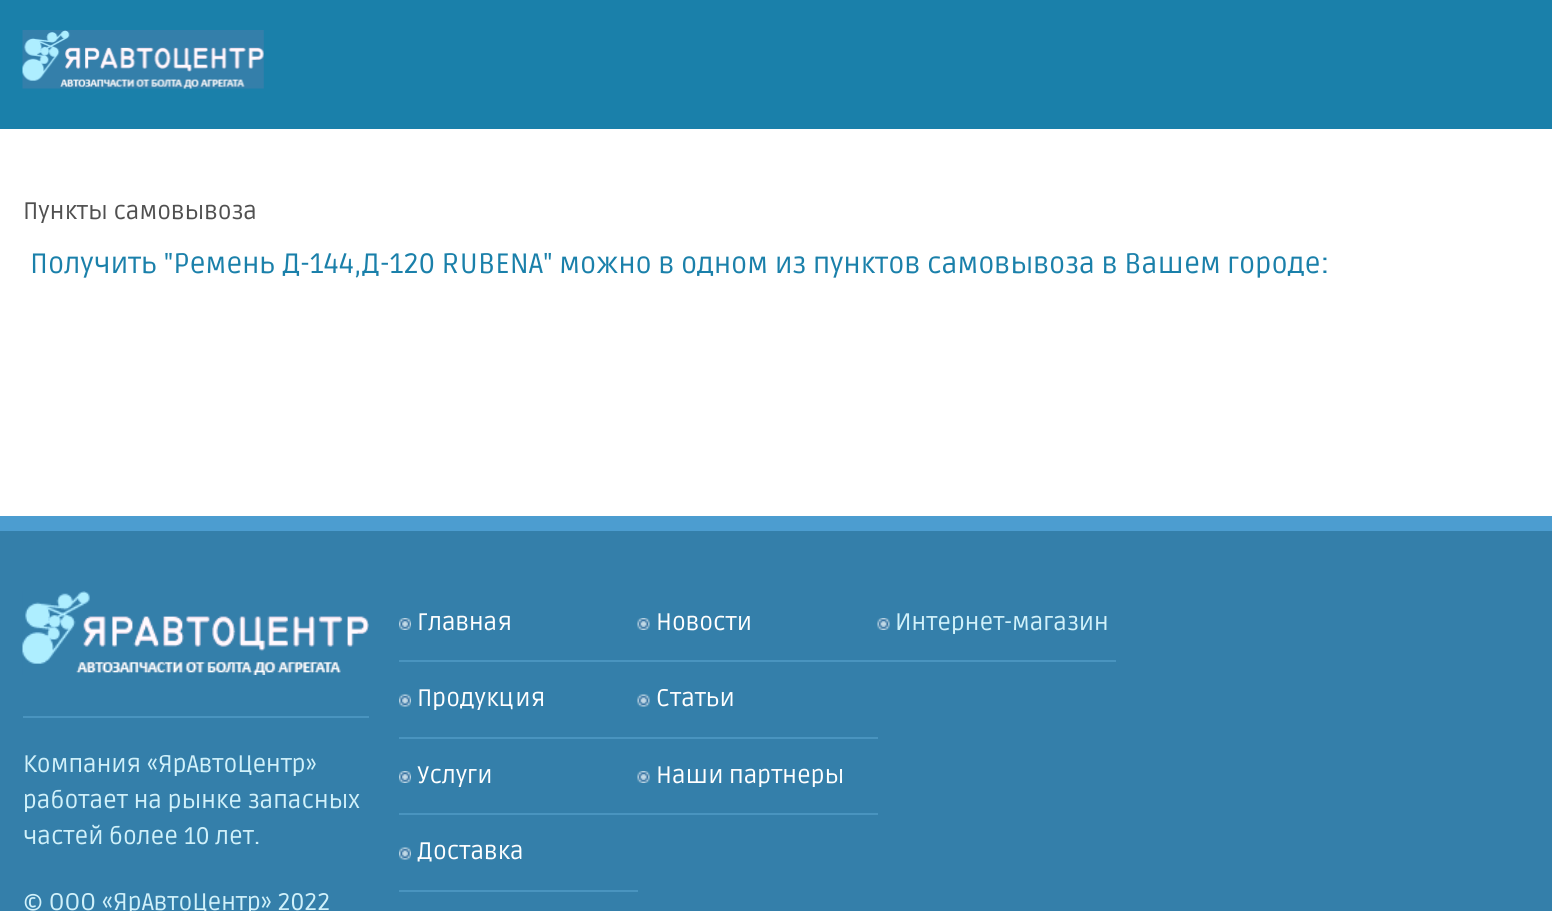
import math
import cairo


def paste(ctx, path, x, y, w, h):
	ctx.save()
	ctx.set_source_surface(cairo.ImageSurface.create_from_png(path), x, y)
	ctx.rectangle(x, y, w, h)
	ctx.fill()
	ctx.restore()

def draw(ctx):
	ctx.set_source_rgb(1, 1, 1)
	ctx.paint()
	ctx.set_source_rgb(0.102, 0.502, 0.667)
	ctx.rectangle(0, 0, 1552, 129)
	ctx.fill()
	paste(ctx, 'media/1.png', 22, 30, 242, 59)
	ctx.select_font_face('Ruda')
	ctx.set_font_size(24)
	ctx.set_source_rgb(0.314, 0.314, 0.314)
	ctx.move_to(23, 219)
	ctx.show_text('Пункты самовывоза')
	ctx.set_font_size(28.1)
	ctx.set_source_rgb(0.102, 0.502, 0.667)
	ctx.move_to(30, 273)
	ctx.show_text('Получить "Ремень Д-144,Д-120 RUBENA" можно в одном из пунктов самовывоза в Вашем городе:')
	ctx.set_source_rgb(0.298, 0.616, 0.816)
	ctx.rectangle(0, 516, 1552, 15)
	ctx.fill()
	ctx.set_source_rgb(0.204, 0.498, 0.667)
	ctx.rectangle(0, 531, 1552, 380)
	ctx.fill()
	paste(ctx, 'media/2.png', 22, 591, 347, 84)
	ctx.set_source_rgb(0.286, 0.58, 0.749)
	ctx.rectangle(23, 716, 346, 2)
	ctx.fill()
	ctx.set_font_size(24)
	ctx.set_source_rgb(0.816, 0.945, 0.98)
	for x, y, s in [
		(23, 772, 'Компания «ЯрАвтоЦентр»'),
		(23, 808, 'работает на рынке запасных'),
		(23, 844, 'частей более 10 лет.'),
		(23, 910, '© ООО «ЯрАвтоЦентр» 2022'),
	]:
		ctx.move_to(x, y)
		ctx.show_text(s)
	paste(ctx, 'media/3.png', 399, 618, 12, 12)
	ctx.set_source_rgb(1, 1, 1)
	ctx.move_to(417, 630)
	ctx.show_text('Главная')
	ctx.set_source_rgb(0.286, 0.58, 0.749)
	ctx.rectangle(399, 660, 717, 2)
	ctx.fill()
	paste(ctx, 'media/4.png', 399, 694, 12, 13)
	ctx.set_source_rgb(1, 1, 1)
	ctx.move_to(417, 706)
	ctx.show_text('Продукция')
	ctx.set_source_rgb(0.286, 0.58, 0.749)
	ctx.rectangle(399, 737, 479, 2)
	ctx.fill()
	paste(ctx, 'media/3.png', 399, 771, 12, 12)
	ctx.set_source_rgb(1, 1, 1)
	ctx.move_to(417, 783)
	ctx.show_text('Услуги')
	ctx.set_source_rgb(0.286, 0.58, 0.749)
	ctx.rectangle(399, 813, 479, 2)
	ctx.fill()
	paste(ctx, 'media/4.png', 399, 847, 12, 13)
	ctx.set_source_rgb(1, 1, 1)
	ctx.move_to(417, 859)
	ctx.show_text('Доставка')
	ctx.set_source_rgb(0.286, 0.58, 0.749)
	ctx.rectangle(399, 890, 239, 2)
	ctx.fill()
	paste(ctx, 'media/5.png', 637, 618, 13, 12)
	ctx.set_source_rgb(1, 1, 1)
	ctx.move_to(656, 630)
	ctx.show_text('Новости')
	paste(ctx, 'media/6.png', 637, 694, 13, 13)
	ctx.move_to(656, 706)
	ctx.show_text('Статьи')
	paste(ctx, 'media/5.png', 637, 771, 13, 12)
	ctx.move_to(656, 783)
	ctx.show_text('Наши партнеры')
	paste(ctx, 'media/7.png', 877, 618, 13, 12)
	ctx.set_source_rgb(0.816, 0.945, 0.98)
	ctx.move_to(895, 630)
	ctx.show_text('Интернет-магазин')


surface = cairo.ImageSurface(cairo.FORMAT_RGB24, 1552, 911)
ctx = cairo.Context(surface)
options = cairo.FontOptions()
options.set_hint_metrics(cairo.HINT_METRICS_OFF)
options.set_hint_style(cairo.HINT_STYLE_NONE)
ctx.set_font_options(options)
ctx.set_miter_limit(4)
draw(ctx)
surface.write_to_png('image.png')
